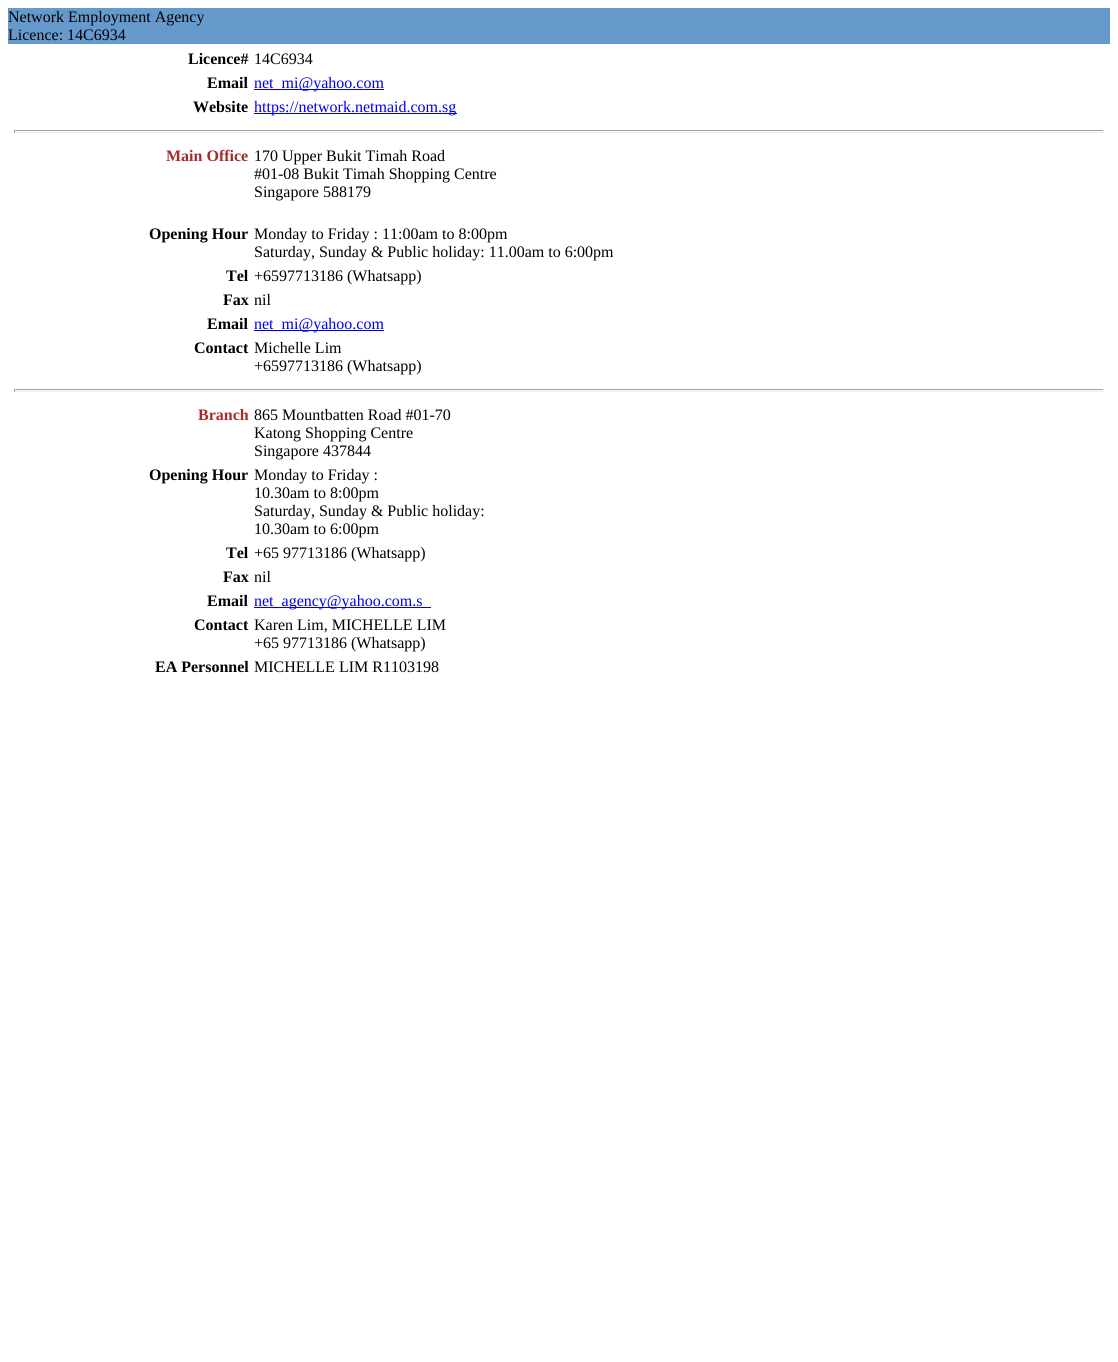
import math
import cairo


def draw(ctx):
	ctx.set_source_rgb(1, 1, 1)
	ctx.paint()
	ctx.set_source_rgb(0.4, 0.6, 0.8)
	ctx.rectangle(8, 8, 1102, 36)
	ctx.fill()
	ctx.select_font_face('Liberation Serif')
	ctx.set_font_size(16)
	ctx.set_source_rgb(0, 0, 0)
	ctx.move_to(8, 22)
	ctx.show_text('Network Employment Agency')
	ctx.move_to(8, 40)
	ctx.show_text('Licence: 14C6934')
	ctx.select_font_face('Liberation Serif', cairo.FONT_SLANT_NORMAL, cairo.FONT_WEIGHT_BOLD)
	ctx.move_to(188, 64)
	ctx.show_text('Licence#')
	ctx.select_font_face('Liberation Serif')
	ctx.move_to(254, 64)
	ctx.show_text('14C6934')
	ctx.select_font_face('Liberation Serif', cairo.FONT_SLANT_NORMAL, cairo.FONT_WEIGHT_BOLD)
	ctx.move_to(207, 88)
	ctx.show_text('Email')
	ctx.set_source_rgb(0, 0, 0.933)
	ctx.rectangle(254, 89, 130, 1)
	ctx.fill()
	ctx.select_font_face('Liberation Serif')
	ctx.move_to(254, 88)
	ctx.show_text('net_mi@yahoo.com')
	ctx.select_font_face('Liberation Serif', cairo.FONT_SLANT_NORMAL, cairo.FONT_WEIGHT_BOLD)
	ctx.set_source_rgb(0, 0, 0)
	ctx.move_to(193, 112)
	ctx.show_text('Website')
	ctx.set_source_rgb(0, 0, 0.933)
	ctx.rectangle(254, 113, 203, 1)
	ctx.fill()
	ctx.select_font_face('Liberation Serif')
	ctx.move_to(254, 112)
	ctx.show_text('https://network.netmaid.com.sg')
	ctx.set_source_rgb(0.624, 0.624, 0.624)
	ctx.rectangle(14, 130, 1090, 1)
	ctx.fill()
	ctx.set_source_rgb(0.933, 0.933, 0.933)
	ctx.rectangle(1103, 130, 1, 3)
	ctx.rectangle(14, 132, 1090, 1)
	ctx.fill()
	ctx.set_source_rgb(0.624, 0.624, 0.624)
	ctx.rectangle(14, 130, 1, 3)
	ctx.fill()
	ctx.select_font_face('Liberation Serif', cairo.FONT_SLANT_NORMAL, cairo.FONT_WEIGHT_BOLD)
	ctx.set_source_rgb(0.647, 0.165, 0.165)
	ctx.move_to(166, 161)
	ctx.show_text('Main Office')
	ctx.select_font_face('Liberation Serif')
	ctx.set_source_rgb(0, 0, 0)
	for x, y, s in [
		(254, 161, '170 Upper Bukit Timah Road'),
		(254, 179, '#01-08 Bukit Timah Shopping Centre'),
		(254, 197, 'Singapore 588179'),
	]:
		ctx.move_to(x, y)
		ctx.show_text(s)
	ctx.select_font_face('Liberation Serif', cairo.FONT_SLANT_NORMAL, cairo.FONT_WEIGHT_BOLD)
	ctx.move_to(149, 239)
	ctx.show_text('Opening Hour')
	ctx.select_font_face('Liberation Serif')
	ctx.move_to(254, 239)
	ctx.show_text('Monday to Friday : 11:00am to 8:00pm')
	ctx.move_to(254, 257)
	ctx.show_text('Saturday, Sunday & Public holiday: 11.00am to 6:00pm')
	ctx.select_font_face('Liberation Serif', cairo.FONT_SLANT_NORMAL, cairo.FONT_WEIGHT_BOLD)
	ctx.move_to(226, 281)
	ctx.show_text('Tel')
	ctx.select_font_face('Liberation Serif')
	ctx.move_to(254, 281)
	ctx.show_text('+6597713186 (Whatsapp)')
	ctx.select_font_face('Liberation Serif', cairo.FONT_SLANT_NORMAL, cairo.FONT_WEIGHT_BOLD)
	ctx.move_to(223, 305)
	ctx.show_text('Fax')
	ctx.select_font_face('Liberation Serif')
	ctx.move_to(254, 305)
	ctx.show_text('nil')
	ctx.select_font_face('Liberation Serif', cairo.FONT_SLANT_NORMAL, cairo.FONT_WEIGHT_BOLD)
	ctx.move_to(207, 329)
	ctx.show_text('Email')
	ctx.set_source_rgb(0, 0, 0.933)
	ctx.rectangle(254, 330, 130, 1)
	ctx.fill()
	ctx.select_font_face('Liberation Serif')
	ctx.move_to(254, 329)
	ctx.show_text('net_mi@yahoo.com')
	ctx.select_font_face('Liberation Serif', cairo.FONT_SLANT_NORMAL, cairo.FONT_WEIGHT_BOLD)
	ctx.set_source_rgb(0, 0, 0)
	ctx.move_to(194, 353)
	ctx.show_text('Contact')
	ctx.select_font_face('Liberation Serif')
	ctx.move_to(254, 353)
	ctx.show_text('Michelle Lim')
	ctx.move_to(254, 371)
	ctx.show_text('+6597713186 (Whatsapp)')
	ctx.set_source_rgb(0.624, 0.624, 0.624)
	ctx.rectangle(14, 389, 1090, 1)
	ctx.fill()
	ctx.set_source_rgb(0.933, 0.933, 0.933)
	ctx.rectangle(1103, 389, 1, 3)
	ctx.rectangle(14, 391, 1090, 1)
	ctx.fill()
	ctx.set_source_rgb(0.624, 0.624, 0.624)
	ctx.rectangle(14, 389, 1, 3)
	ctx.fill()
	ctx.select_font_face('Liberation Serif', cairo.FONT_SLANT_NORMAL, cairo.FONT_WEIGHT_BOLD)
	ctx.set_source_rgb(0.647, 0.165, 0.165)
	ctx.move_to(198, 420)
	ctx.show_text('Branch')
	ctx.select_font_face('Liberation Serif')
	ctx.set_source_rgb(0, 0, 0)
	for x, y, s in [
		(254, 420, '865 Mountbatten Road #01-70'),
		(254, 438, 'Katong Shopping Centre'),
		(254, 456, 'Singapore 437844'),
	]:
		ctx.move_to(x, y)
		ctx.show_text(s)
	ctx.select_font_face('Liberation Serif', cairo.FONT_SLANT_NORMAL, cairo.FONT_WEIGHT_BOLD)
	ctx.move_to(149, 480)
	ctx.show_text('Opening Hour')
	ctx.select_font_face('Liberation Serif')
	for x, y, s in [
		(254, 480, 'Monday to Friday :'),
		(254, 498, '10.30am to 8:00pm'),
		(254, 516, 'Saturday, Sunday & Public holiday:'),
		(254, 534, '10.30am to 6:00pm'),
	]:
		ctx.move_to(x, y)
		ctx.show_text(s)
	ctx.select_font_face('Liberation Serif', cairo.FONT_SLANT_NORMAL, cairo.FONT_WEIGHT_BOLD)
	ctx.move_to(226, 558)
	ctx.show_text('Tel')
	ctx.select_font_face('Liberation Serif')
	ctx.move_to(254, 558)
	ctx.show_text('+65 97713186 (Whatsapp)')
	ctx.select_font_face('Liberation Serif', cairo.FONT_SLANT_NORMAL, cairo.FONT_WEIGHT_BOLD)
	ctx.move_to(223, 582)
	ctx.show_text('Fax')
	ctx.select_font_face('Liberation Serif')
	ctx.move_to(254, 582)
	ctx.show_text('nil')
	ctx.select_font_face('Liberation Serif', cairo.FONT_SLANT_NORMAL, cairo.FONT_WEIGHT_BOLD)
	ctx.move_to(207, 606)
	ctx.show_text('Email')
	ctx.set_source_rgb(0, 0, 0.933)
	ctx.rectangle(254, 607, 177, 1)
	ctx.fill()
	ctx.select_font_face('Liberation Serif')
	ctx.move_to(254, 606)
	ctx.show_text('net_agency@yahoo.com.s')
	ctx.select_font_face('Liberation Serif', cairo.FONT_SLANT_NORMAL, cairo.FONT_WEIGHT_BOLD)
	ctx.set_source_rgb(0, 0, 0)
	ctx.move_to(194, 630)
	ctx.show_text('Contact')
	ctx.select_font_face('Liberation Serif')
	ctx.move_to(254, 630)
	ctx.show_text('Karen Lim, MICHELLE LIM')
	ctx.move_to(254, 648)
	ctx.show_text('+65 97713186 (Whatsapp)')
	ctx.select_font_face('Liberation Serif', cairo.FONT_SLANT_NORMAL, cairo.FONT_WEIGHT_BOLD)
	ctx.move_to(155, 672)
	ctx.show_text('EA Personnel')
	ctx.select_font_face('Liberation Serif')
	ctx.move_to(254, 672)
	ctx.show_text('MICHELLE LIM R1103198')


surface = cairo.ImageSurface(cairo.FORMAT_RGB24, 1118, 1362)
ctx = cairo.Context(surface)
options = cairo.FontOptions()
options.set_hint_metrics(cairo.HINT_METRICS_OFF)
options.set_hint_style(cairo.HINT_STYLE_NONE)
ctx.set_font_options(options)
ctx.set_miter_limit(4)
draw(ctx)
surface.write_to_png('image.png')
